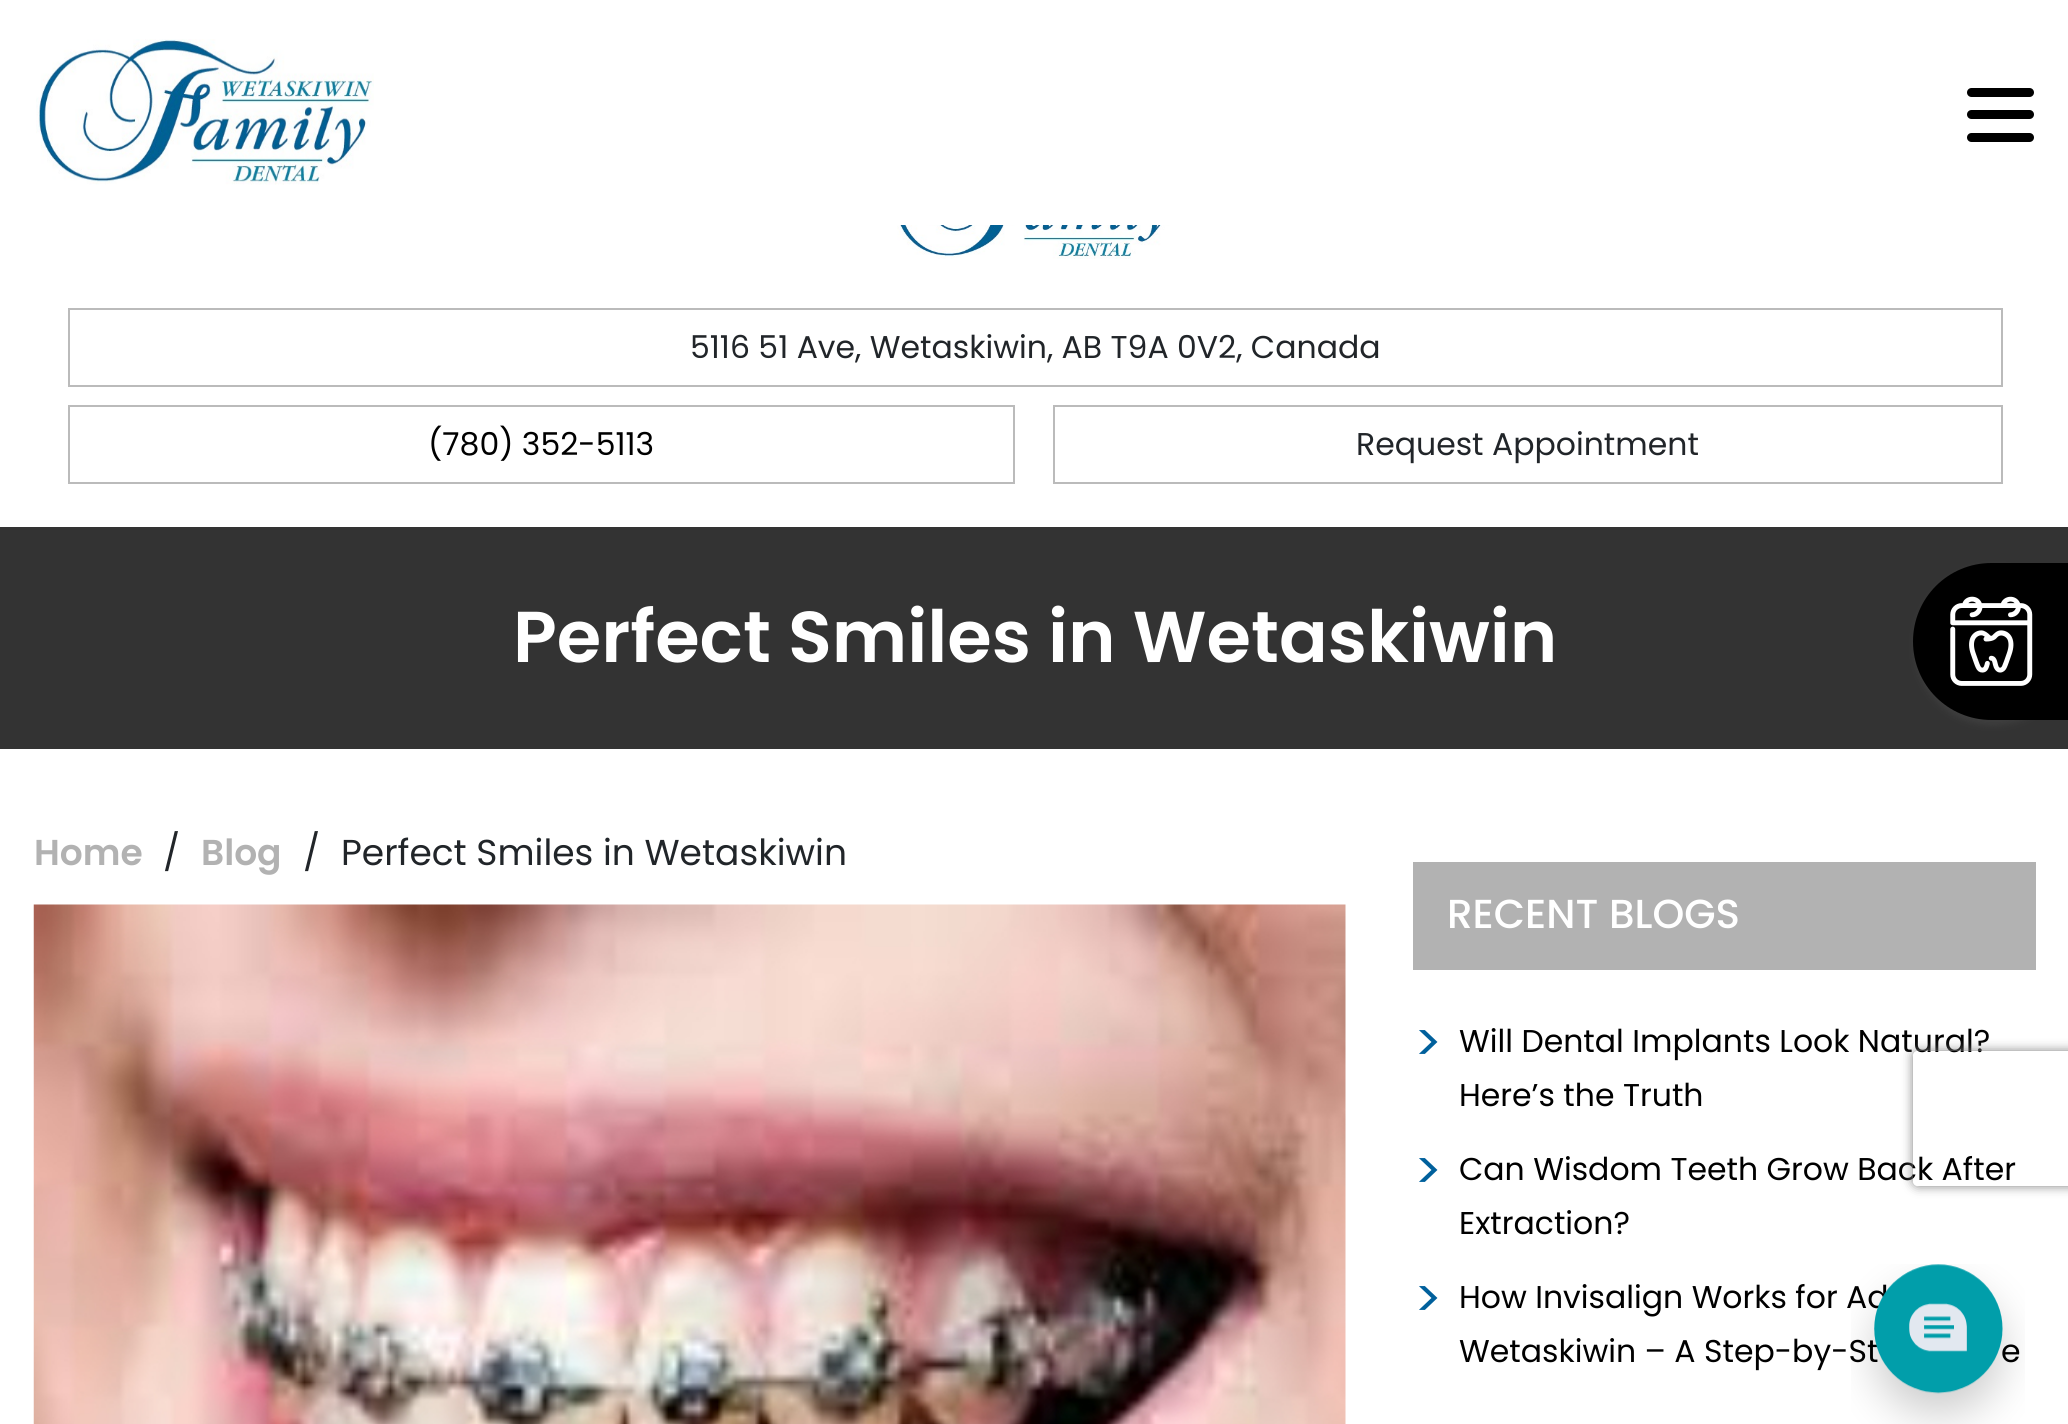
import math
import cairo


def round_path(ctx, x, y, w, h, r):
	ctx.new_sub_path()
	for i, (u, v) in enumerate([(x + w - r, y + h - r), (x + r, y + h - r), (x + r, y + r), (x + w - r, y + r)]):
		ctx.arc(u, v, r, i * math.pi / 2, (i + 1) * math.pi / 2)
	ctx.close_path()

def blur_box(ctx, x, y, w, h, r, blur, alpha):
	ctx.push_group_with_content(cairo.CONTENT_ALPHA)
	ctx.set_operator(cairo.OPERATOR_SOURCE)
	for i in range(15, -16, -2):
		e = blur * i / 6
		if min(w, h) + 2 * e > 0:
			ctx.set_source_rgba(0, 0, 0, alpha * math.erfc((i - 1) / 8.5) / 2)
			round_path(ctx, x - e, y - e, w + 2 * e, h + 2 * e, max(0, min(r + e + blur * .6, min(w, h) / 2 + e)))
			ctx.fill()
	ctx.mask(ctx.pop_group())

def paste(ctx, path, x, y, w, h):
	ctx.save()
	ctx.set_source_surface(cairo.ImageSurface.create_from_png(path), x, y)
	ctx.rectangle(x, y, w, h)
	ctx.fill()
	ctx.restore()

def draw(ctx):
	ctx.set_source_rgb(1, 1, 1)
	ctx.paint()
	paste(ctx, 'media/1.png', 36, 39, 338, 146)
	ctx.set_source_rgb(0, 0, 0)
	round_path(ctx, 1967, 88, 67, 9, 4.5)
	ctx.fill()
	round_path(ctx, 1967, 110, 67, 9, 4.5)
	ctx.fill()
	round_path(ctx, 1967, 133, 67, 9, 4.5)
	ctx.fill()
	paste(ctx, 'media/2.png', 893, 225, 284, 34)
	ctx.rectangle(69, 309, 1933, 77)
	ctx.set_source_rgb(0.733, 0.733, 0.733)
	ctx.stroke()
	ctx.select_font_face('Poppins')
	ctx.set_font_size(31.5)
	ctx.set_source_rgb(0.129, 0.145, 0.161)
	ctx.move_to(690, 358)
	ctx.show_text('5116 51 Ave, Wetaskiwin, AB T9A 0V2, Canada')
	ctx.rectangle(69, 406, 945, 77)
	ctx.set_source_rgb(0.733, 0.733, 0.733)
	ctx.stroke()
	ctx.set_source_rgb(0, 0, 0)
	ctx.move_to(428, 455)
	ctx.show_text('(780) 352-5113')
	ctx.rectangle(1054, 406, 948, 77)
	ctx.set_source_rgb(0.733, 0.733, 0.733)
	ctx.stroke()
	ctx.set_source_rgb(0.129, 0.145, 0.161)
	ctx.move_to(1356, 455)
	ctx.show_text('Request Appointment')
	ctx.set_source_rgb(0.2, 0.2, 0.2)
	ctx.rectangle(0, 527, 2068, 222)
	ctx.fill()
	ctx.select_font_face('Poppins SemiBold')
	ctx.set_font_size(72)
	ctx.set_source_rgb(1, 1, 1)
	ctx.move_to(513, 662)
	ctx.show_text('Perfect Smiles in Wetaskiwin')
	ctx.set_font_size(36)
	ctx.set_source_rgb(0.698, 0.698, 0.698)
	ctx.move_to(34, 865)
	ctx.show_text('Home')
	ctx.select_font_face('Poppins')
	ctx.set_source_rgb(0.129, 0.145, 0.161)
	ctx.move_to(163, 865)
	ctx.show_text('/')
	ctx.select_font_face('Poppins SemiBold')
	ctx.set_source_rgb(0.698, 0.698, 0.698)
	ctx.move_to(201, 865)
	ctx.show_text('Blog')
	ctx.select_font_face('Poppins')
	ctx.set_source_rgb(0.129, 0.145, 0.161)
	ctx.move_to(303, 865)
	ctx.show_text('/')
	ctx.move_to(341, 865)
	ctx.show_text('Perfect Smiles in Wetaskiwin')
	paste(ctx, 'media/3.png', 33, 904, 1313, 520)
	ctx.set_source_rgb(0.698, 0.698, 0.698)
	ctx.rectangle(1413, 862, 623, 108)
	ctx.fill()
	ctx.select_font_face('Poppins Medium')
	ctx.set_font_size(40.5)
	ctx.set_source_rgb(1, 1, 1)
	ctx.move_to(1447, 928)
	ctx.show_text('RECENT BLOGS')
	ctx.select_font_face('Poppins')
	ctx.set_font_size(52)
	ctx.set_source_rgb(0, 0.376, 0.612)
	ctx.move_to(1414, 1061)
	ctx.show_text('>')
	ctx.set_font_size(31.5)
	ctx.set_source_rgb(0, 0, 0)
	ctx.move_to(1459, 1052)
	ctx.show_text('Will Dental Implants Look Natural?')
	ctx.move_to(1459, 1106)
	ctx.show_text('Here’s the Truth')
	ctx.set_font_size(52)
	ctx.set_source_rgb(0, 0.376, 0.612)
	ctx.move_to(1414, 1189)
	ctx.show_text('>')
	ctx.set_font_size(31.5)
	ctx.set_source_rgb(0, 0, 0)
	ctx.move_to(1459, 1180)
	ctx.show_text('Can Wisdom Teeth Grow Back After')
	ctx.move_to(1459, 1234)
	ctx.show_text('Extraction?')
	ctx.set_font_size(52)
	ctx.set_source_rgb(0, 0.376, 0.612)
	ctx.move_to(1414, 1317)
	ctx.show_text('>')
	ctx.set_font_size(31.5)
	ctx.set_source_rgb(0, 0, 0)
	for x, y, s in [
		(1459, 1308, 'How Invisalign Works for Ad'),
		(1459, 1362, 'Wetaskiwin – A Step-by-St'),
		(2001, 1362, 'e'),
	]:
		ctx.move_to(x, y)
		ctx.show_text(s)
	ctx.set_source_rgb(0.502, 0.502, 0.502)
	blur_box(ctx, 1915, 567, 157, 158, 78.5, 3.5, 0.15)
	ctx.set_source_rgb(0, 0, 0)
	ctx.new_path()
	ctx.move_to(1991.5, 563)
	ctx.line_to(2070, 563)
	ctx.line_to(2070, 720)
	ctx.line_to(1991.5, 720)
	ctx.curve_to(1948, 720, 1913, 685, 1913, 641.5)
	ctx.curve_to(1913, 598, 1948, 563, 1991.5, 563)
	ctx.close_path()
	ctx.fill()
	paste(ctx, 'media/4.png', 1950, 596, 83, 90)
	ctx.save()
	ctx.set_fill_rule(cairo.FILL_RULE_EVEN_ODD)
	ctx.new_path()
	ctx.move_to(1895, 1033)
	ctx.line_to(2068, 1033)
	ctx.line_to(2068, 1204)
	ctx.line_to(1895, 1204)
	ctx.close_path()
	ctx.move_to(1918, 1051)
	ctx.line_to(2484, 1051)
	ctx.curve_to(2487, 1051, 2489, 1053, 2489, 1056)
	ctx.line_to(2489, 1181)
	ctx.curve_to(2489, 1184, 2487, 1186, 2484, 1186)
	ctx.line_to(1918, 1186)
	ctx.curve_to(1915, 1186, 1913, 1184, 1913, 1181)
	ctx.line_to(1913, 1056)
	ctx.curve_to(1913, 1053, 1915, 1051, 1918, 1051)
	ctx.close_path()
	ctx.clip()
	ctx.set_source_rgb(0.502, 0.502, 0.502)
	blur_box(ctx, 1913, 1051, 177, 135, 5, 5.5, 1)
	ctx.restore()
	paste(ctx, 'media/5.png', 1851, 1264, 174, 160)


surface = cairo.ImageSurface(cairo.FORMAT_RGB24, 2068, 1424)
ctx = cairo.Context(surface)
options = cairo.FontOptions()
options.set_hint_metrics(cairo.HINT_METRICS_OFF)
options.set_hint_style(cairo.HINT_STYLE_NONE)
ctx.set_font_options(options)
ctx.set_miter_limit(4)
draw(ctx)
surface.write_to_png('image.png')
